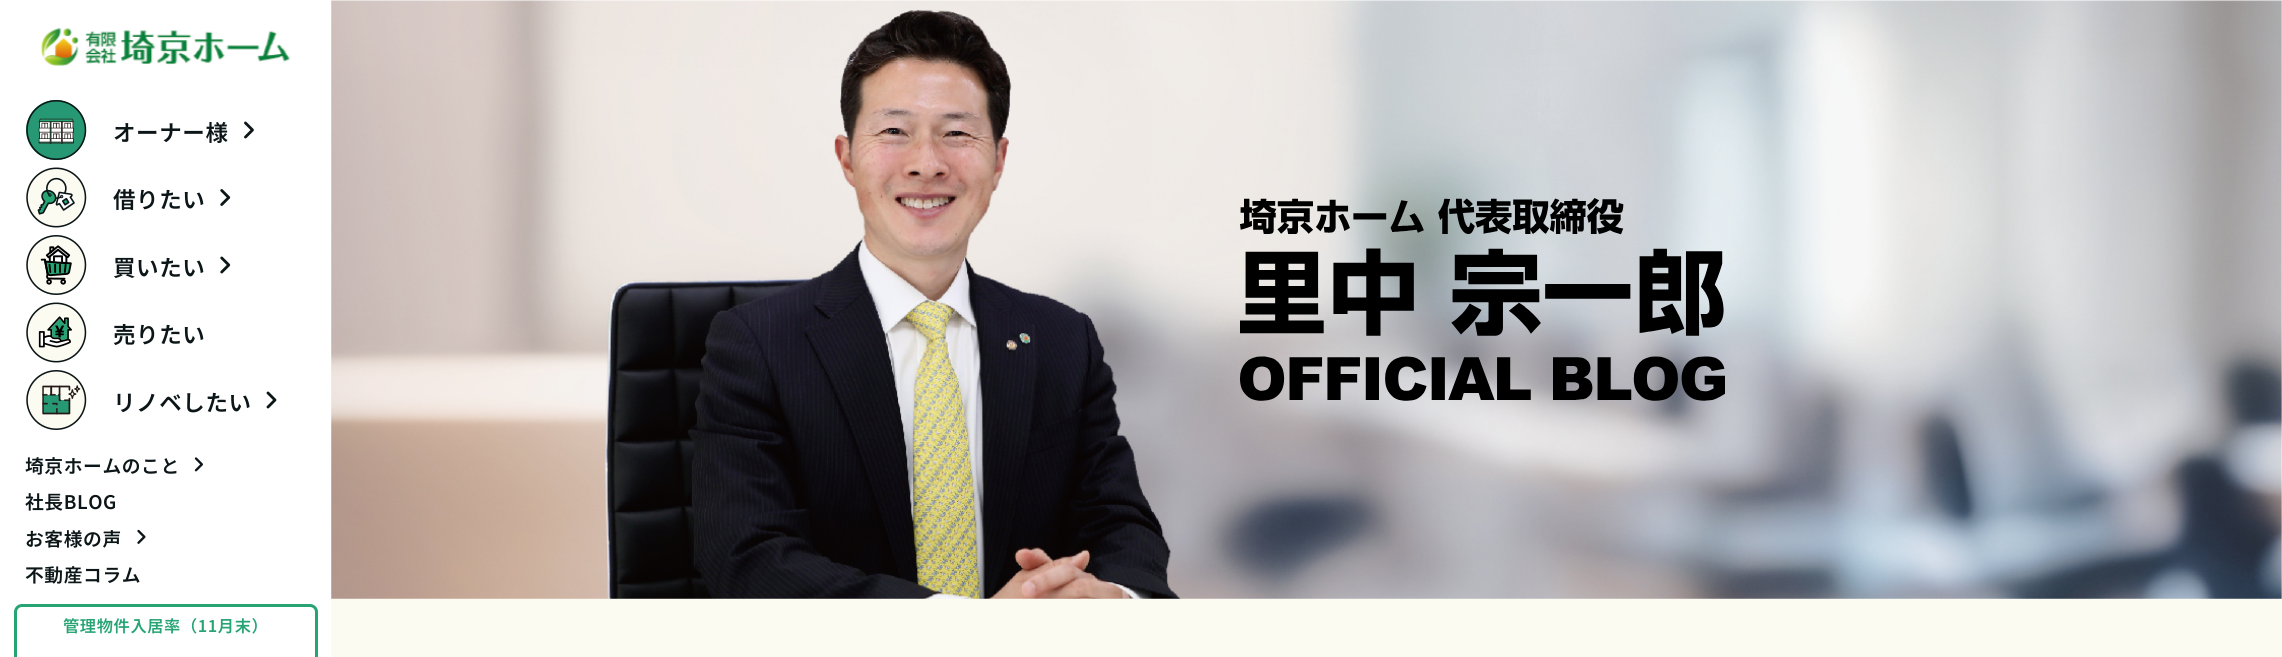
import math
import cairo


def write_spaced(ctx, x, y, s, letter, word):
	ctx.move_to(x, y)
	for ch in s:
		ctx.show_text(ch)
		ctx.rel_move_to(letter + word * (ch == ' '), 0)

def round_path(ctx, x, y, w, h, r):
	ctx.new_sub_path()
	for i, (u, v) in enumerate([(x + w - r, y + h - r), (x + r, y + h - r), (x + r, y + r), (x + w - r, y + r)]):
		ctx.arc(u, v, r, i * math.pi / 2, (i + 1) * math.pi / 2)
	ctx.close_path()

def paste(ctx, path, x, y, w, h):
	ctx.save()
	ctx.set_source_surface(cairo.ImageSurface.create_from_png(path), x, y)
	ctx.rectangle(x, y, w, h)
	ctx.fill()
	ctx.restore()

def draw(ctx):
	ctx.set_source_rgb(1, 1, 1)
	ctx.paint()
	paste(ctx, 'media/1.png', 41, 28, 249, 38)
	paste(ctx, 'media/2.png', 26, 100, 61, 60)
	ctx.select_font_face('Noto Sans JP SemiBold')
	ctx.set_font_size(22.5)
	ctx.set_source_rgb(0.047, 0.086, 0.094)
	write_spaced(ctx, 113, 141, 'オーナー様', 0.6, 0)
	paste(ctx, 'media/3.png', 244, 121, 10, 18)
	paste(ctx, 'media/4.png', 26, 167, 61, 61)
	write_spaced(ctx, 113, 208, '借りたい', 0.6, 0)
	paste(ctx, 'media/5.png', 220, 189, 11, 17)
	paste(ctx, 'media/6.png', 26, 235, 61, 60)
	write_spaced(ctx, 113, 276, '買いたい', 0.6, 0)
	paste(ctx, 'media/7.png', 220, 256, 11, 18)
	paste(ctx, 'media/8.png', 26, 302, 61, 61)
	write_spaced(ctx, 113, 343, '売りたい', 0.6, 0)
	paste(ctx, 'media/9.png', 26, 370, 61, 60)
	write_spaced(ctx, 113, 411, 'リノベしたい', 0.6, 0)
	paste(ctx, 'media/10.png', 266, 391, 11, 18)
	ctx.set_font_size(18.75)
	write_spaced(ctx, 25, 473, '埼京ホームのこと', 0.6, 0)
	paste(ctx, 'media/11.png', 194, 457, 9, 15)
	write_spaced(ctx, 25, 509, '社長BLOG', 0.6, 0)
	write_spaced(ctx, 25, 546, 'お客様の声', 0.6, 0)
	paste(ctx, 'media/12.png', 137, 529, 9, 15)
	write_spaced(ctx, 25, 582, '不動産コラム', 0.6, 0)
	round_path(ctx, 15.5, 605.5, 301, 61, 6.5)
	ctx.set_source_rgb(0.149, 0.643, 0.455)
	ctx.set_line_width(3)
	ctx.stroke()
	ctx.set_font_size(16.25)
	write_spaced(ctx, 63, 632, '管理物件入居率（11月末）', 0.6, 0)
	ctx.set_source_rgb(0.984, 0.984, 0.949)
	ctx.rectangle(331, 0, 1951, 657)
	ctx.fill()
	paste(ctx, 'media/13.png', 331, 0, 1951, 599)
	paste(ctx, 'media/14.png', 1240, 198, 485, 203)


surface = cairo.ImageSurface(cairo.FORMAT_RGB24, 2282, 657)
ctx = cairo.Context(surface)
options = cairo.FontOptions()
options.set_hint_metrics(cairo.HINT_METRICS_OFF)
options.set_hint_style(cairo.HINT_STYLE_NONE)
ctx.set_font_options(options)
ctx.set_miter_limit(4)
draw(ctx)
surface.write_to_png('image.png')
